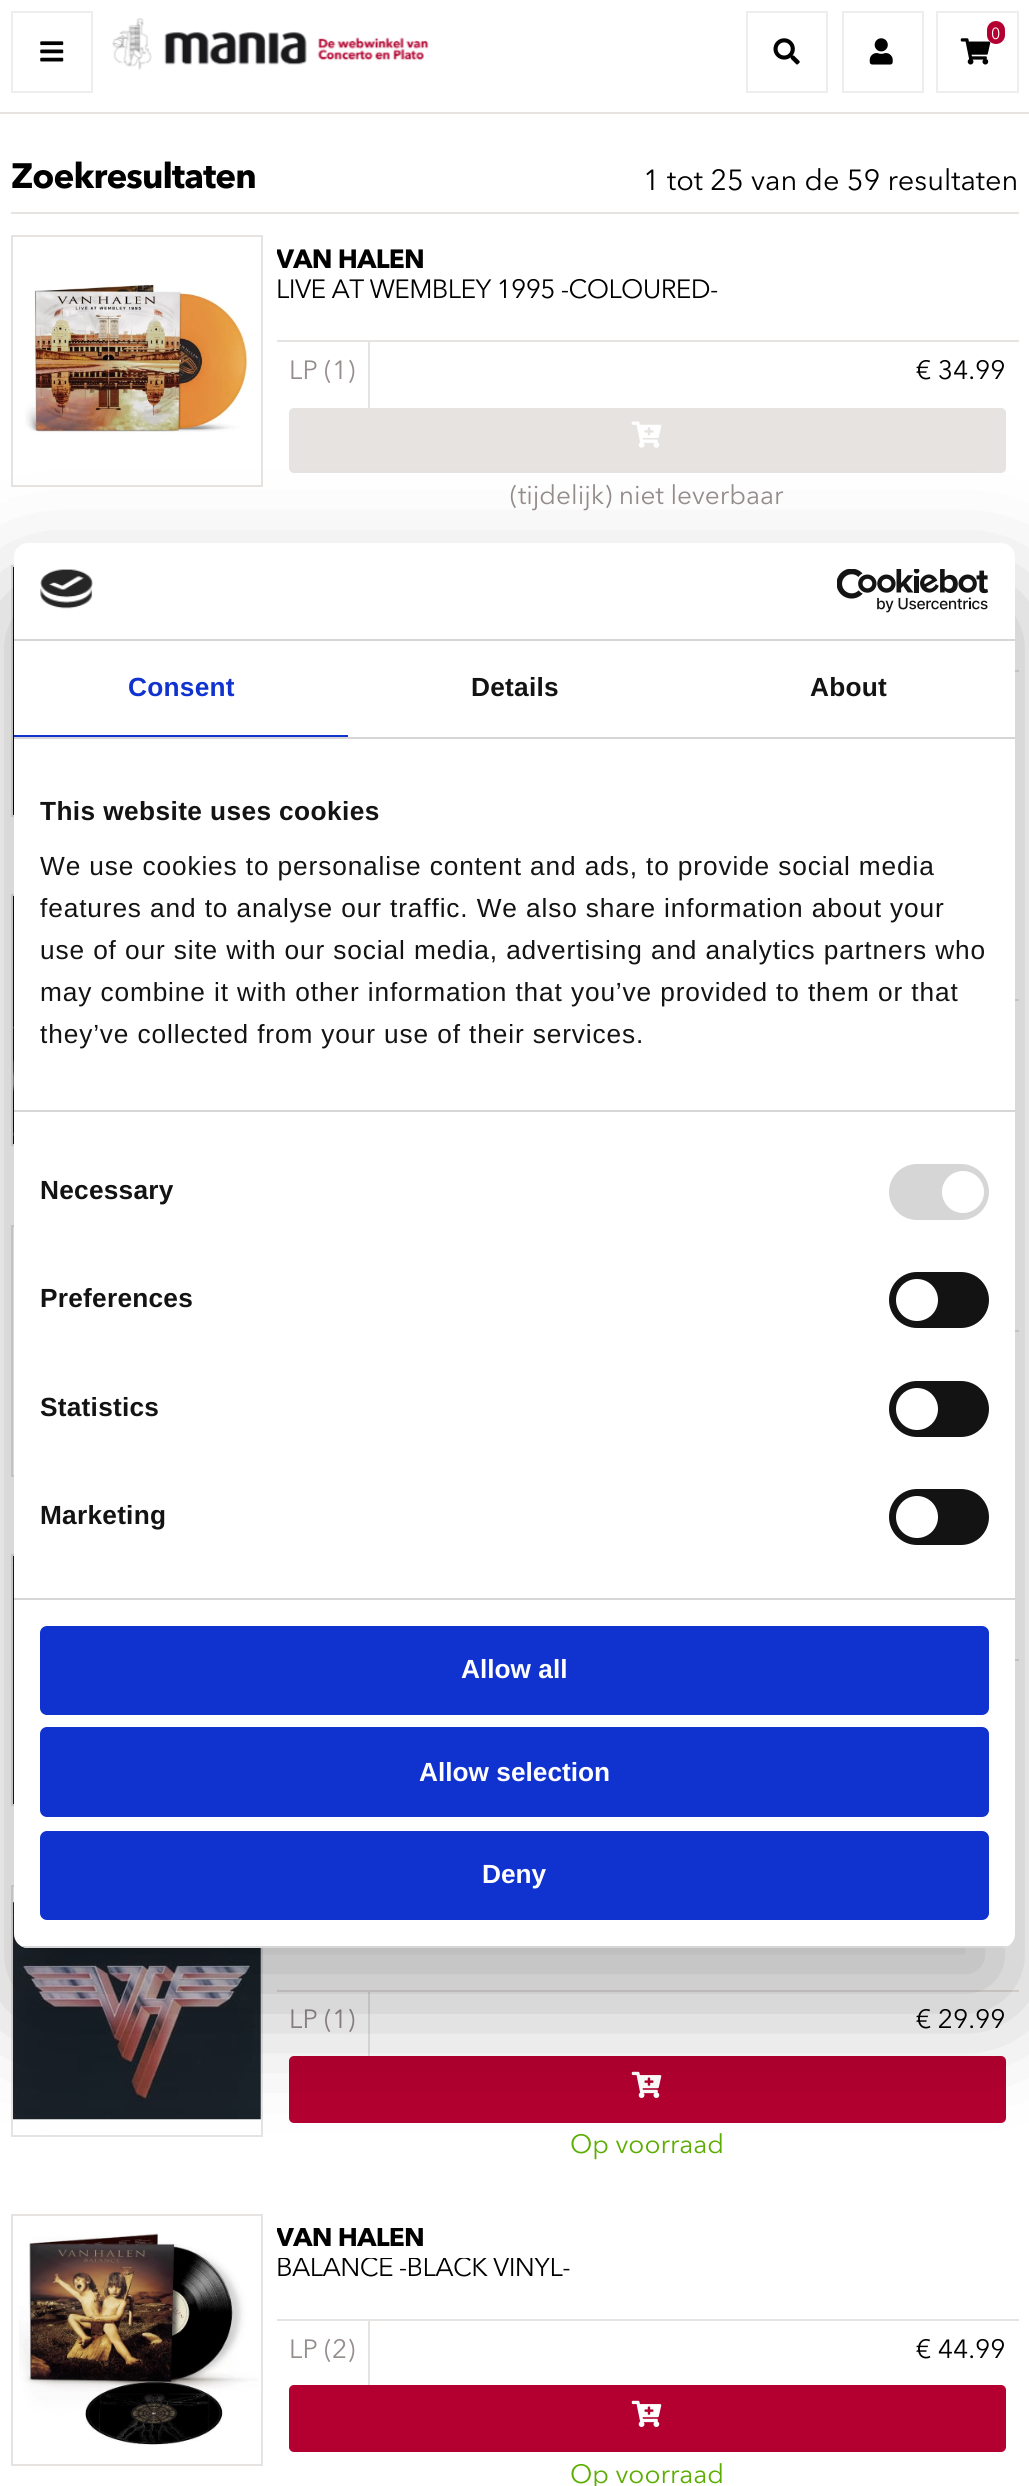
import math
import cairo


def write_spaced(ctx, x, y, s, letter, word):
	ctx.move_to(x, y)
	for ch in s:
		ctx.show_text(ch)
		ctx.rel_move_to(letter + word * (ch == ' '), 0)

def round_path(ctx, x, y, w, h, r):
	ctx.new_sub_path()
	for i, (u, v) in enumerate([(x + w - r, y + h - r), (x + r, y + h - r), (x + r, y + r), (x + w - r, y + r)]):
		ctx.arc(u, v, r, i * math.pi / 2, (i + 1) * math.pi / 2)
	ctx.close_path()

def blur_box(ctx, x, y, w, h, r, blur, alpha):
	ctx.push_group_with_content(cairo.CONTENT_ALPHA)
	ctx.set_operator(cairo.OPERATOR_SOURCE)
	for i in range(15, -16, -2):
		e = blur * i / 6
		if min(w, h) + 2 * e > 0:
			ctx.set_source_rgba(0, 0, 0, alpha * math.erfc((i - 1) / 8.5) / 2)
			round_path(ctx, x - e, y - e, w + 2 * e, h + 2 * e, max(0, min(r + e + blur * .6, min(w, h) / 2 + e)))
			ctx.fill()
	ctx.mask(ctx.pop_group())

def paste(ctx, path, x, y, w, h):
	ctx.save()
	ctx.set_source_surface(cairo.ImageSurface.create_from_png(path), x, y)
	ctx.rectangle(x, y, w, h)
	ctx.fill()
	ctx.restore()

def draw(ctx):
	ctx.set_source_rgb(1, 1, 1)
	ctx.paint()
	ctx.rectangle(12, 12, 80, 80)
	ctx.set_source_rgb(0.933, 0.933, 0.933)
	ctx.stroke()
	paste(ctx, 'media/1.png', 40, 41, 24, 21)
	paste(ctx, 'media/2.png', 112, 17, 317, 53)
	ctx.rectangle(747, 12, 80, 80)
	ctx.stroke()
	paste(ctx, 'media/3.png', 773, 38, 27, 27)
	ctx.rectangle(843, 12, 80, 80)
	ctx.stroke()
	paste(ctx, 'media/4.png', 869, 38, 24, 27)
	ctx.rectangle(937, 12, 81, 80)
	ctx.stroke()
	paste(ctx, 'media/5.png', 960, 38, 31, 27)
	ctx.set_source_rgb(0.702, 0, 0.188)
	round_path(ctx, 987, 21, 18, 23, 9)
	ctx.fill()
	ctx.select_font_face('Avenir Next')
	ctx.set_font_size(16)
	ctx.set_source_rgb(1, 1, 1)
	ctx.move_to(991, 39)
	ctx.show_text('0')
	ctx.set_source_rgb(0.906, 0.89, 0.882)
	ctx.rectangle(0, 112, 1029, 2)
	ctx.fill()
	ctx.rectangle(11, 212, 1008, 2)
	ctx.fill()
	ctx.select_font_face('Avenir Next', cairo.FONT_SLANT_NORMAL, cairo.FONT_WEIGHT_BOLD)
	ctx.set_font_size(35)
	ctx.set_source_rgb(0, 0, 0)
	write_spaced(ctx, 11, 188, 'Zoekresultaten', -0.9, 0)
	ctx.select_font_face('Avenir Next')
	ctx.set_font_size(28.9)
	ctx.move_to(643, 190)
	ctx.show_text('1 tot 25 van de 59 resultaten')
	paste(ctx, 'media/6.png', 25, 284, 223, 149)
	ctx.rectangle(12, 236, 250, 250)
	ctx.set_source_rgb(0.906, 0.89, 0.882)
	ctx.stroke()
	ctx.save()
	ctx.rectangle(277, 249, 742, 28)
	ctx.clip()
	ctx.select_font_face('Avenir Next', cairo.FONT_SLANT_NORMAL, cairo.FONT_WEIGHT_BOLD)
	ctx.set_font_size(26.25)
	ctx.set_source_rgb(0, 0, 0)
	write_spaced(ctx, 276, 268, 'VAN HALEN', -0.65, 0)
	ctx.restore()
	ctx.set_font_size(26.25)
	ctx.set_source_rgb(0, 0, 0)
	write_spaced(ctx, 276, 298, 'LIVE AT WEMBLEY 1995 -COLOURED-', -0.65, 0)
	ctx.set_source_rgb(0.906, 0.89, 0.882)
	ctx.rectangle(277, 340, 742, 2)
	ctx.fill()
	ctx.set_source_rgb(0.588, 0.553, 0.553)
	ctx.move_to(289, 379)
	ctx.show_text('LP (1)')
	ctx.set_source_rgb(0.906, 0.89, 0.882)
	ctx.rectangle(368, 341, 2, 67)
	ctx.fill()
	ctx.set_source_rgb(0, 0, 0)
	ctx.move_to(916, 379)
	ctx.show_text('€ 34.99')
	ctx.set_source_rgb(0.906, 0.89, 0.882)
	round_path(ctx, 289, 408, 717, 65, 5)
	ctx.fill()
	paste(ctx, 'media/7.png', 631, 421, 31, 27)
	ctx.set_source_rgb(0.588, 0.553, 0.553)
	ctx.move_to(510, 504)
	ctx.show_text('(tijdelijk) niet leverbaar')
	paste(ctx, 'media/8.png', 13, 567, 1, 248)
	ctx.rectangle(12, 566, 250, 250)
	ctx.set_source_rgb(0.906, 0.89, 0.882)
	ctx.stroke()
	ctx.rectangle(1015, 670, 4, 2)
	ctx.fill()
	paste(ctx, 'media/9.png', 13, 896, 1, 248)
	ctx.rectangle(12, 895, 250, 250)
	ctx.stroke()
	ctx.rectangle(1015, 999, 4, 2)
	ctx.fill()
	ctx.rectangle(12, 1226, 250, 250)
	ctx.stroke()
	ctx.rectangle(1015, 1330, 4, 2)
	ctx.fill()
	paste(ctx, 'media/10.png', 13, 1556, 1, 248)
	ctx.rectangle(12, 1555, 250, 250)
	ctx.stroke()
	ctx.rectangle(1015, 1659, 4, 2)
	ctx.fill()
	paste(ctx, 'media/11.png', 13, 1902, 248, 218)
	ctx.rectangle(12, 1886, 250, 250)
	ctx.stroke()
	ctx.rectangle(277, 1990, 742, 2)
	ctx.fill()
	ctx.set_source_rgb(0.588, 0.553, 0.553)
	ctx.move_to(289, 2028)
	ctx.show_text('LP (1)')
	ctx.set_source_rgb(0.906, 0.89, 0.882)
	ctx.rectangle(368, 1992, 2, 64)
	ctx.fill()
	ctx.set_source_rgb(0, 0, 0)
	ctx.move_to(916, 2028)
	ctx.show_text('€ 29.99')
	ctx.set_source_rgb(0.702, 0, 0.188)
	round_path(ctx, 289, 2056, 717, 67, 5)
	ctx.fill()
	paste(ctx, 'media/12.png', 631, 2071, 31, 27)
	ctx.set_source_rgb(0.357, 0.678, 0.004)
	ctx.move_to(570, 2153)
	ctx.show_text('Op voorraad')
	paste(ctx, 'media/13.png', 19, 2233, 240, 212)
	ctx.rectangle(12, 2215, 250, 250)
	ctx.set_source_rgb(0.906, 0.89, 0.882)
	ctx.stroke()
	ctx.save()
	ctx.rectangle(277, 2228, 742, 28)
	ctx.clip()
	ctx.select_font_face('Avenir Next', cairo.FONT_SLANT_NORMAL, cairo.FONT_WEIGHT_BOLD)
	ctx.set_source_rgb(0, 0, 0)
	write_spaced(ctx, 276, 2246, 'VAN HALEN', -0.65, 0)
	ctx.restore()
	ctx.save()
	ctx.rectangle(277, 2258, 742, 47)
	ctx.clip()
	ctx.set_source_rgb(0, 0, 0)
	write_spaced(ctx, 276, 2276, 'BALANCE -BLACK VINYL-', -0.65, 0)
	ctx.restore()
	ctx.rectangle(277, 2319, 742, 2)
	ctx.fill()
	ctx.set_source_rgb(0.588, 0.553, 0.553)
	ctx.move_to(289, 2358)
	ctx.show_text('LP (2)')
	ctx.set_source_rgb(0.906, 0.89, 0.882)
	ctx.rectangle(368, 2321, 2, 64)
	ctx.fill()
	ctx.set_source_rgb(0, 0, 0)
	ctx.move_to(916, 2358)
	ctx.show_text('€ 44.99')
	ctx.set_source_rgb(0.702, 0, 0.188)
	round_path(ctx, 289, 2385, 717, 67, 5)
	ctx.fill()
	paste(ctx, 'media/12.png', 631, 2400, 31, 27)
	ctx.set_source_rgb(0.357, 0.678, 0.004)
	ctx.move_to(570, 2483)
	ctx.show_text('Op voorraad')
	ctx.set_source_rgb(0, 0, 0)
	blur_box(ctx, 14, 599, 1001, 1405, 14, 59.5, 0.3)
	ctx.set_source_rgb(1, 1, 1)
	round_path(ctx, 14, 543, 1001, 1405, 14)
	ctx.fill()
	ctx.set_source_rgb(0.839, 0.839, 0.839)
	ctx.rectangle(14, 639, 1001, 2)
	ctx.fill()
	paste(ctx, 'media/14.png', 40, 569, 53, 40)
	paste(ctx, 'media/15.png', 837, 569, 151, 44)
	ctx.rectangle(14, 737, 1001, 2)
	ctx.fill()
	ctx.set_source_rgb(0.063, 0.196, 0.812)
	ctx.rectangle(14, 735, 334, 2)
	ctx.fill()
	ctx.select_font_face('Liberation Sans', cairo.FONT_SLANT_NORMAL, cairo.FONT_WEIGHT_BOLD)
	write_spaced(ctx, 128, 696, 'Consent', 0.25, 0)
	ctx.set_source_rgb(0.078, 0.078, 0.078)
	write_spaced(ctx, 471, 696, 'Details', 0.25, 0)
	write_spaced(ctx, 810, 696, 'About', 0.25, 0)
	ctx.set_source_rgb(0.839, 0.839, 0.839)
	ctx.rectangle(14, 1110, 1001, 2)
	ctx.fill()
	ctx.set_source_rgb(0.078, 0.078, 0.078)
	write_spaced(ctx, 40, 820, 'This website uses cookies', 0.4, 0)
	ctx.select_font_face('Liberation Sans')
	for x, y, s in [
		(40, 875, 'We use cookies to personalise content and ads, to provide social media'),
		(40, 917, 'features and to analyse our traffic. We also share information about your'),
		(40, 959, 'use of our site with our social media, advertising and analytics partners who'),
		(40, 1001, 'may combine it with other information that you’ve provided to them or that'),
		(40, 1043, 'they’ve collected from your use of their services.'),
	]:
		write_spaced(ctx, x, y, s, 0.88, 0)
	ctx.set_source_rgb(0.839, 0.839, 0.839)
	ctx.rectangle(14, 1598, 1001, 2)
	ctx.fill()
	ctx.select_font_face('Liberation Sans', cairo.FONT_SLANT_NORMAL, cairo.FONT_WEIGHT_BOLD)
	ctx.set_source_rgb(0.078, 0.078, 0.078)
	write_spaced(ctx, 40, 1199, 'Necessary', 0.25, 0)
	ctx.set_source_rgb(0.839, 0.839, 0.839)
	round_path(ctx, 889, 1164, 100, 56, 28)
	ctx.fill()
	ctx.set_source_rgb(1, 1, 1)
	ctx.arc(963, 1192, 21, 0, 2 * math.pi)
	ctx.fill()
	ctx.set_source_rgb(0.078, 0.078, 0.078)
	write_spaced(ctx, 40, 1307, 'Preferences', 0.25, 0)
	round_path(ctx, 889, 1272, 100, 56, 28)
	ctx.fill()
	ctx.set_source_rgb(1, 1, 1)
	ctx.arc(917, 1300, 21, 0, 2 * math.pi)
	ctx.fill()
	ctx.set_source_rgb(0.078, 0.078, 0.078)
	write_spaced(ctx, 40, 1416, 'Statistics', 0.25, 0)
	round_path(ctx, 889, 1381, 100, 56, 28)
	ctx.fill()
	ctx.set_source_rgb(1, 1, 1)
	ctx.arc(917, 1409, 21, 0, 2 * math.pi)
	ctx.fill()
	ctx.set_source_rgb(0.078, 0.078, 0.078)
	write_spaced(ctx, 40, 1524, 'Marketing', 0.25, 0)
	round_path(ctx, 889, 1489, 100, 56, 28)
	ctx.fill()
	ctx.set_source_rgb(1, 1, 1)
	ctx.arc(917, 1517, 21, 0, 2 * math.pi)
	ctx.fill()
	ctx.save()
	round_path(ctx, 14, 543, 1001, 1405, 14)
	ctx.clip()
	ctx.set_source_rgb(0.839, 0.839, 0.839)
	ctx.rectangle(14, 1946, 1001, 2)
	ctx.fill()
	ctx.restore()
	ctx.set_source_rgb(0.063, 0.196, 0.812)
	round_path(ctx, 42, 1628, 945, 85, 5)
	ctx.fill_preserve()
	ctx.set_line_width(4)
	ctx.stroke()
	ctx.set_source_rgb(1, 1, 1)
	ctx.move_to(461, 1678)
	ctx.show_text('Allow all')
	ctx.set_source_rgb(0.063, 0.196, 0.812)
	round_path(ctx, 42, 1729, 945, 86, 5)
	ctx.fill_preserve()
	ctx.stroke()
	ctx.set_source_rgb(1, 1, 1)
	ctx.move_to(419, 1781)
	ctx.show_text('Allow selection')
	ctx.set_source_rgb(0.063, 0.196, 0.812)
	round_path(ctx, 42, 1833, 945, 85, 5)
	ctx.fill_preserve()
	ctx.stroke()
	ctx.set_source_rgb(1, 1, 1)
	ctx.move_to(482, 1883)
	ctx.show_text('Deny')


surface = cairo.ImageSurface(cairo.FORMAT_RGB24, 1029, 2486)
ctx = cairo.Context(surface)
options = cairo.FontOptions()
options.set_hint_metrics(cairo.HINT_METRICS_OFF)
options.set_hint_style(cairo.HINT_STYLE_NONE)
ctx.set_font_options(options)
ctx.set_miter_limit(4)
draw(ctx)
surface.write_to_png('image.png')
